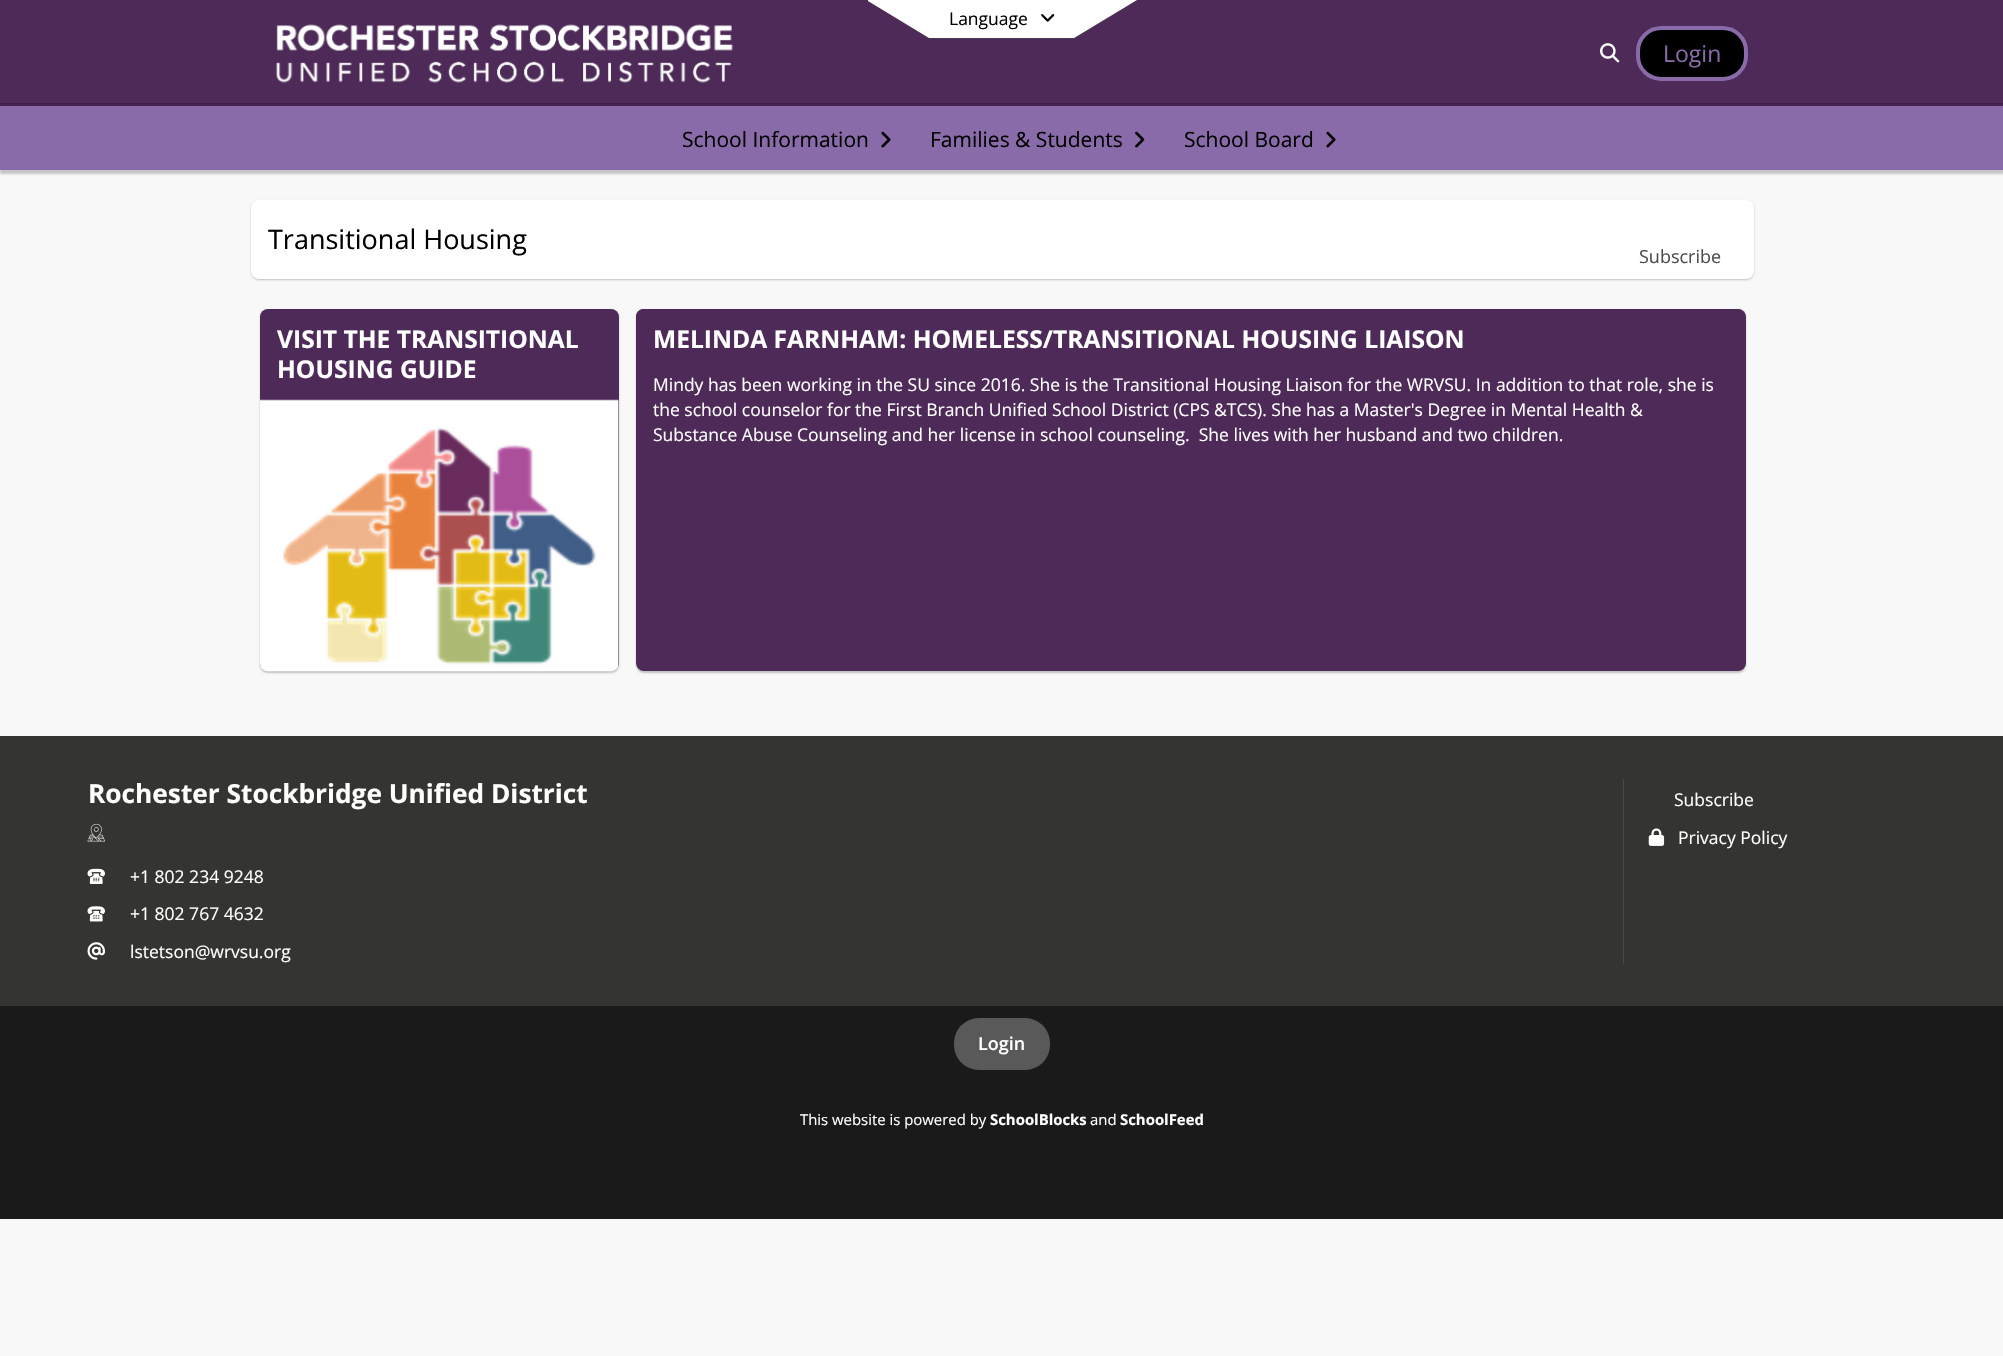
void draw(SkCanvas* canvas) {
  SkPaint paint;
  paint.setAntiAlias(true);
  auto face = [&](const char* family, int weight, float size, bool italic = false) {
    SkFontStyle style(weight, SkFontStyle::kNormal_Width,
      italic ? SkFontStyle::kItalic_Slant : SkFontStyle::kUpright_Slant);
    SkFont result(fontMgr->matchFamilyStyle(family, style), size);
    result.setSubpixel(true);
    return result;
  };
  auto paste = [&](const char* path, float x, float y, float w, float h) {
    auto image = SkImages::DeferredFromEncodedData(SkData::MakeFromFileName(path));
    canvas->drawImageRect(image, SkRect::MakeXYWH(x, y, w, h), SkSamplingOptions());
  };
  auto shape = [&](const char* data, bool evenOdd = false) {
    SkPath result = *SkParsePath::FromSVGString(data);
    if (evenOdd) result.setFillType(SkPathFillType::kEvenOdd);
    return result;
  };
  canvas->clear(0xfff8f8f8);
  paint.setColor(0x33000000);
  paint.setMaskFilter(SkMaskFilter::MakeBlur(kNormal_SkBlurStyle, 1));
  canvas->drawRect(SkRect::MakeXYWH(0, 106, 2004, 68), paint);
  paint.setMaskFilter(nullptr);
  paint.setColor(0xff492752);
  canvas->drawRect(SkRect::MakeXYWH(0, 103, 2003, 3), paint);
  paint.setColor(0x1a000000);
  canvas->drawPath(shape("M0 102V104H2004V1V102Z"), paint);
  paint.setColor(0xff896ba9);
  canvas->drawRect(SkRect::MakeXYWH(0, 106, 2003, 64), paint);
  paint.setColor(0x1a000000);
  paint.setMaskFilter(SkMaskFilter::MakeBlur(kNormal_SkBlurStyle, 1));
  canvas->drawRect(SkRect::MakeXYWH(0, 3, 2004, 102), paint);
  paint.setMaskFilter(nullptr);
  paint.setColor(0xff4d2a57);
  canvas->drawRect(SkRect::MakeXYWH(0, 0, 2003, 103), paint);
  paint.setColor(0xff4d3853);
  canvas->drawPath(shape("M866 0L929 39H1074L1138 0Z"), paint);
  paint.setColor(0xffffffff);
  canvas->drawPath(shape("M868 0V1L929 38H1074L1137 0Z"), paint);
  paste("img/1.png", 1041, 14, 14, 8);
  paste("img/2.png", 276, 24, 457, 59);
  paste("img/3.png", 1600, 43, 20, 20);
  canvas->save();
  canvas->clipPath(shape("M1661 26H1723C1737 26 1748 37 1748 51V56C1748 70 1737 81 1723 81H1661C1647 81 1636 70 1636 56V51C1636 37 1647 26 1661 26Z"), true);
  paint.setColor(0xff000000);
  canvas->drawRect(SkRect::MakeXYWH(1640, 26, 104, 55), paint);
  canvas->restore();
  paint.setStroke(true);
  paint.setStrokeWidth(4);
  paint.setColor(0xff896ba9);
  canvas->drawRoundRect(SkRect::MakeXYWH(1638, 28, 108, 51), 23, 23, paint);
  paste("img/4.png", 881, 131, 10, 17);
  paste("img/5.png", 1135, 131, 10, 17);
  paste("img/4.png", 1326, 131, 10, 17);
  paint.setStroke(false);
  paint.setColor(0x38000000);
  paint.setMaskFilter(SkMaskFilter::MakeBlur(kNormal_SkBlurStyle, 1));
  canvas->drawRoundRect(SkRect::MakeXYWH(251, 201, 1503, 79), 8, 8, paint);
  paint.setMaskFilter(nullptr);
  paint.setColor(0xffffffff);
  canvas->drawRoundRect(SkRect::MakeXYWH(251, 200, 1503, 79), 8, 8, paint);
  paint.setColor(0x38000000);
  paint.setMaskFilter(SkMaskFilter::MakeBlur(kNormal_SkBlurStyle, 1));
  canvas->drawRoundRect(SkRect::MakeXYWH(260, 310, 359, 363), 8, 8, paint);
  paint.setMaskFilter(nullptr);
  paint.setColor(0xff4d2a57);
  canvas->drawRoundRect(SkRect::MakeXYWH(260, 309, 359, 362), 8, 8, paint);
  paste("img/6.png", 260, 399, 359, 273);
  paint.setColor(0x38000000);
  paint.setMaskFilter(SkMaskFilter::MakeBlur(kNormal_SkBlurStyle, 1));
  canvas->drawRoundRect(SkRect::MakeXYWH(636, 310, 1110, 363), 8, 8, paint);
  paint.setMaskFilter(nullptr);
  paint.setColor(0xff4d2a57);
  canvas->drawRoundRect(SkRect::MakeXYWH(636, 309, 1110, 362), 8, 8, paint);
  canvas->drawPath(shape("M644 309H1737C1741.5 309 1745 312.5 1745 317V354H636V317C636 312.5 639.5 309 644 309Z"), paint);
  paint.setColor(0xff343430);
  canvas->drawRect(SkRect::MakeXYWH(0, 736, 2003, 270), paint);
  paste("img/7.png", 87, 823, 18, 19);
  paste("img/8.png", 87, 868, 18, 16);
  paste("img/9.png", 87, 906, 18, 16);
  paste("img/10.png", 87, 942, 18, 18);
  paint.setColor(0xff494a4d);
  canvas->drawRect(SkRect::MakeXYWH(1623, 779, 1, 185), paint);
  paste("img/11.png", 1648, 828, 17, 18);
  paint.setColor(0xff1a1a1a);
  canvas->drawRect(SkRect::MakeXYWH(0, 1006, 2003, 213), paint);
  paint.setColor(0xff595959);
  canvas->drawRoundRect(SkRect::MakeXYWH(954, 1018, 96, 52), 25, 25, paint);
  auto f0 = face("Open Sans", 400, 17.5f);
  paint.setColor(0xff000000);
  canvas->drawString("Language", 949, 25, f0, paint);
  auto f1 = face("Open Sans", 400, 23);
  paint.setColor(0xff896ba9);
  canvas->drawString("Login", 1663, 62, f1, paint);
  auto f2 = face("Open Sans", 400, 21);
  paint.setColor(0xff000000);
  {
    const struct { const char* s; float x, y; } items[] = {
      {"School Information", 682, 147},
      {"Families & Students", 930, 147},
      {"School Board", 1184, 147},
    };
    for (auto [s, x, y] : items) {
      canvas->drawString(s, x, y, f2, paint);
    }
  }
  auto f3 = face("Open Sans", 400, 27);
  canvas->drawString("Transitional Housing", 268, 249, f3, paint);
  auto f4 = face("Open Sans", 400, 18);
  paint.setColor(0xff4d4d4d);
  canvas->drawString("Subscribe", 1639, 263, f4, paint);
  auto f5 = face("Open Sans", 700, 24.6f);
  paint.setColor(0xffffffff);
  {
    const struct { const char* s; float x, y; } items[] = {
      {"VISIT THE TRANSITIONAL", 277, 348},
      {"HOUSING GUIDE", 277, 378},
      {"MELINDA FARNHAM: HOMELESS/TRANSITIONAL HOUSING LIAISON", 653, 348},
    };
    for (auto [s, x, y] : items) {
      canvas->drawString(s, x, y, f5, paint);
    }
  }
  {
    const struct { const char* s; float x, y; } items[] = {
      {"Mindy has been working in the SU since 2016. She is the Transitional Housing Liaison for the WRVSU. In addition to that role, she is", 653, 391},
      {"the school counselor for the First Branch Unified School District (CPS &TCS). She has a Master's Degree in Mental Health &", 653, 416},
      {"Substance Abuse Counseling and her license in school counseling.  She lives with her husband and two children.", 653, 441},
    };
    for (auto [s, x, y] : items) {
      canvas->drawString(s, x, y, f0, paint);
    }
  }
  auto f6 = face("Open Sans", 700, 26.25f);
  canvas->drawString("Rochester Stockbridge Unified District", 88, 803, f6, paint);
  {
    const struct { const char* s; float x, y; } items[] = {
      {"+1 802 234 9248", 130, 883},
      {"+1 802 767 4632", 130, 920},
      {"lstetson@wrvsu.org", 130, 958},
      {"Subscribe", 1674, 806},
      {"Privacy Policy", 1678, 844},
    };
    for (auto [s, x, y] : items) {
      canvas->drawString(s, x, y, f0, paint);
    }
  }
  auto f7 = face("Open Sans", 600, 18);
  canvas->drawString("Login", 978, 1050, f7, paint);
  auto f8 = face("Open Sans", 400, 14.9f);
  canvas->drawString("This website is powered by", 800, 1125, f8, paint);
  auto f9 = face("Open Sans", 700, 14.9f);
  canvas->drawString("SchoolBlocks", 990, 1125, f9, paint);
  canvas->drawString("and", 1090, 1125, f8, paint);
  canvas->drawString("SchoolFeed", 1120, 1125, f9, paint);
}
